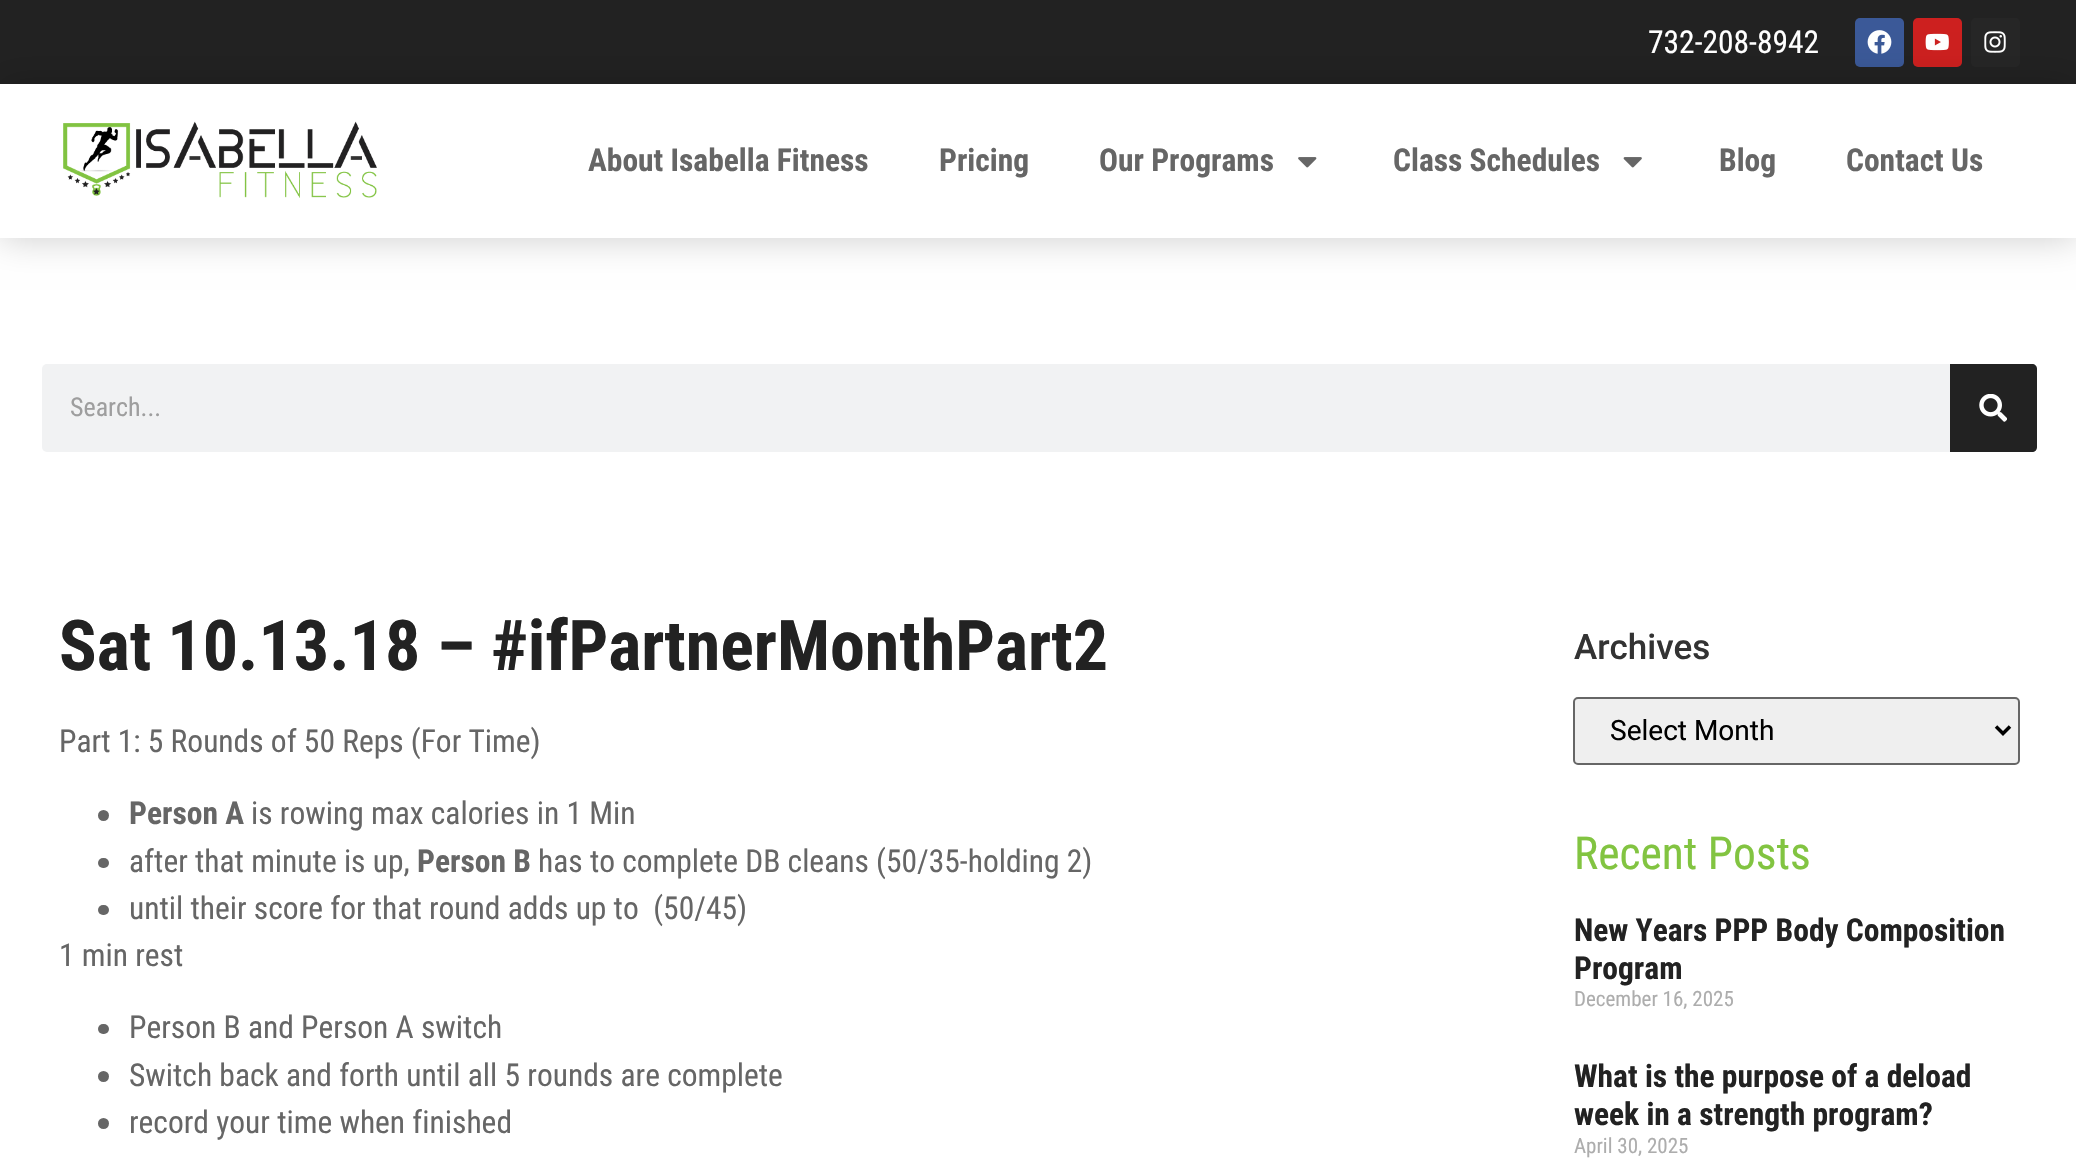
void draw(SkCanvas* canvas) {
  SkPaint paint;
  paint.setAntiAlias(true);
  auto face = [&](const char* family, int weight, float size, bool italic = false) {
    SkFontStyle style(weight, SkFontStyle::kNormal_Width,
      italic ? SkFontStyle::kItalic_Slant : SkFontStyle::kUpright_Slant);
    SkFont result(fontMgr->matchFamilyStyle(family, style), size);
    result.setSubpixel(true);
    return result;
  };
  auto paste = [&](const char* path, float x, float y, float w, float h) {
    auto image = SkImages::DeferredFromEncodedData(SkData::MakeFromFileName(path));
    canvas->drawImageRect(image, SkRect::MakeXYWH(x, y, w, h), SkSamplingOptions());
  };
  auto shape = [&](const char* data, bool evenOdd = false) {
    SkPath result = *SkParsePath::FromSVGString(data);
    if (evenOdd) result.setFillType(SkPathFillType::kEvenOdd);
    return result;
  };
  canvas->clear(0xffffffff);
  paint.setColor(0xff222222);
  canvas->drawRect(SkRect::MakeXYWH(0, 0, 2076, 84), paint);
  paint.setColor(0xff3b5998);
  canvas->drawRoundRect(SkRect::MakeXYWH(1855, 18, 49, 49), 5, 5, paint);
  paste("img/1.png", 1867, 30, 25, 24);
  paint.setColor(0xffcd201f);
  canvas->drawRoundRect(SkRect::MakeXYWH(1913, 18, 49, 49), 5, 5, paint);
  paste("img/2.png", 1925, 33, 24, 18);
  paint.setColor(0xff262626);
  canvas->drawRoundRect(SkRect::MakeXYWH(1971, 18, 49, 49), 5, 5, paint);
  paste("img/3.png", 1984, 31, 22, 22);
  canvas->save();
  canvas->clipPath(shape("M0 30H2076V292H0ZM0 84H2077V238H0Z", true), true);
  paint.setColor(0x33000000);
  paint.setMaskFilter(SkMaskFilter::MakeBlur(kNormal_SkBlurStyle, 17.5f));
  canvas->drawRect(SkRect::MakeXYWH(0, 84, 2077, 154), paint);
  paint.setMaskFilter(nullptr);
  canvas->restore();
  paste("img/4.png", 63, 121, 314, 77);
  paste("img/5.png", 1298, 157, 19, 11);
  paste("img/6.png", 1623, 157, 19, 11);
  paint.setColor(0xfff1f2f3);
  canvas->drawRoundRect(SkRect::MakeXYWH(42, 364, 1995, 88), 5, 5, paint);
  paint.setColor(0xff222222);
  canvas->drawPath(shape("M1950 364H2032C2035 364 2037 366 2037 369V447C2037 450 2035 452 2032 452H1950Z"), paint);
  paste("img/7.png", 1979, 394, 28, 28);
  paint.setColor(0xff666666);
  canvas->drawCircle(103.5f, 815.5f, 5.5f, paint);
  canvas->drawRoundRect(SkRect::MakeXYWH(98, 858, 11, 10), 5, 5, paint);
  canvas->drawRoundRect(SkRect::MakeXYWH(98, 905, 11, 10), 5, 5, paint);
  canvas->drawRoundRect(SkRect::MakeXYWH(98, 1024, 11, 10), 5, 5, paint);
  canvas->drawCircle(103.5f, 1076.5f, 5.5f, paint);
  canvas->drawCircle(103.5f, 1123.5f, 5.5f, paint);
  paint.setColor(0xffefefef);
  canvas->drawRoundRect(SkRect::MakeXYWH(1574, 698, 445, 66), 4, 4, paint);
  paint.setStroke(true);
  paint.setStrokeWidth(2);
  paint.setColor(0xff666666);
  canvas->drawRoundRect(SkRect::MakeXYWH(1574, 698, 445, 66), 4, 4, paint);
  paint.setStrokeWidth(3.5f);
  paint.setColor(0xff000000);
  canvas->drawPath(shape("M1996 726.5L2003 733.5L2010 726.5"), paint);
  auto f0 = face("Roboto Condensed", 400, 31.5f);
  paint.setStroke(false);
  paint.setColor(0xffffffff);
  canvas->drawString("732-208-8942", 1648, 53, f0, paint);
  auto f1 = face("Roboto Condensed", 700, 31.5f);
  paint.setColor(0xff666666);
  {
    const struct { const char* s; float x, y; } items[] = {
      {"About Isabella Fitness", 588, 171},
      {"Pricing", 939, 171},
      {"Our Programs", 1099, 171},
      {"Class Schedules", 1393, 171},
      {"Blog", 1719, 171},
      {"Contact Us", 1846, 171},
    };
    for (auto [s, x, y] : items) {
      canvas->drawString(s, x, y, f1, paint);
    }
  }
  auto f2 = face("Roboto Condensed", 400, 26);
  paint.setColor(0xff9e9e9e);
  canvas->drawString("Search...", 70, 416, f2, paint);
  auto f3 = face("Roboto Condensed", 700, 70);
  paint.setColor(0xff222222);
  canvas->drawString("Sat 10.13.18 – #ifPartnerMonthPart2", 59, 670, f3, paint);
  paint.setColor(0xff666666);
  canvas->drawString("Part 1: 5 Rounds of 50 Reps (For Time)", 59, 752, f0, paint);
  canvas->drawString("Person A", 129, 824, f1, paint);
  canvas->drawString("is rowing max calories in 1 Min", 251, 824, f0, paint);
  canvas->drawString("after that minute is up,", 129, 872, f0, paint);
  canvas->drawString("Person B", 417, 872, f1, paint);
  {
    const struct { const char* s; float x, y; } items[] = {
      {"has to complete DB cleans (50/35-holding 2)", 538, 872},
      {"until their score for that round adds up to  (50/45)", 129, 919},
      {"1 min rest", 59, 966},
      {"Person B and Person A switch", 129, 1038},
      {"Switch back and forth until all 5 rounds are complete", 129, 1086},
      {"record your time when finished", 129, 1133},
    };
    for (auto [s, x, y] : items) {
      canvas->drawString(s, x, y, f0, paint);
    }
  }
  auto f4 = face("Roboto", 500, 35);
  paint.setColor(0xff333333);
  canvas->drawString("Archives", 1574, 659, f4, paint);
  auto f5 = face("Roboto", 400, 28);
  paint.setColor(0xff000000);
  canvas->drawString("Select Month", 1610, 740, f5, paint);
  auto f6 = face("Roboto Condensed", 400, 45.5f);
  paint.setColor(0xff82c441);
  canvas->drawString("Recent Posts", 1574, 869, f6, paint);
  paint.setColor(0xff222222);
  canvas->drawString("New Years PPP Body Composition", 1574, 941, f1, paint);
  canvas->drawString("Program", 1574, 979, f1, paint);
  auto f7 = face("Roboto Condensed", 400, 21);
  paint.setColor(0xffadadad);
  canvas->drawString("December 16, 2025", 1574, 1006, f7, paint);
  paint.setColor(0xff222222);
  canvas->drawString("What is the purpose of a deload", 1574, 1087, f1, paint);
  canvas->drawString("week in a strength program?", 1574, 1125, f1, paint);
  paint.setColor(0xffadadad);
  canvas->drawString("April 30, 2025", 1574, 1153, f7, paint);
}
